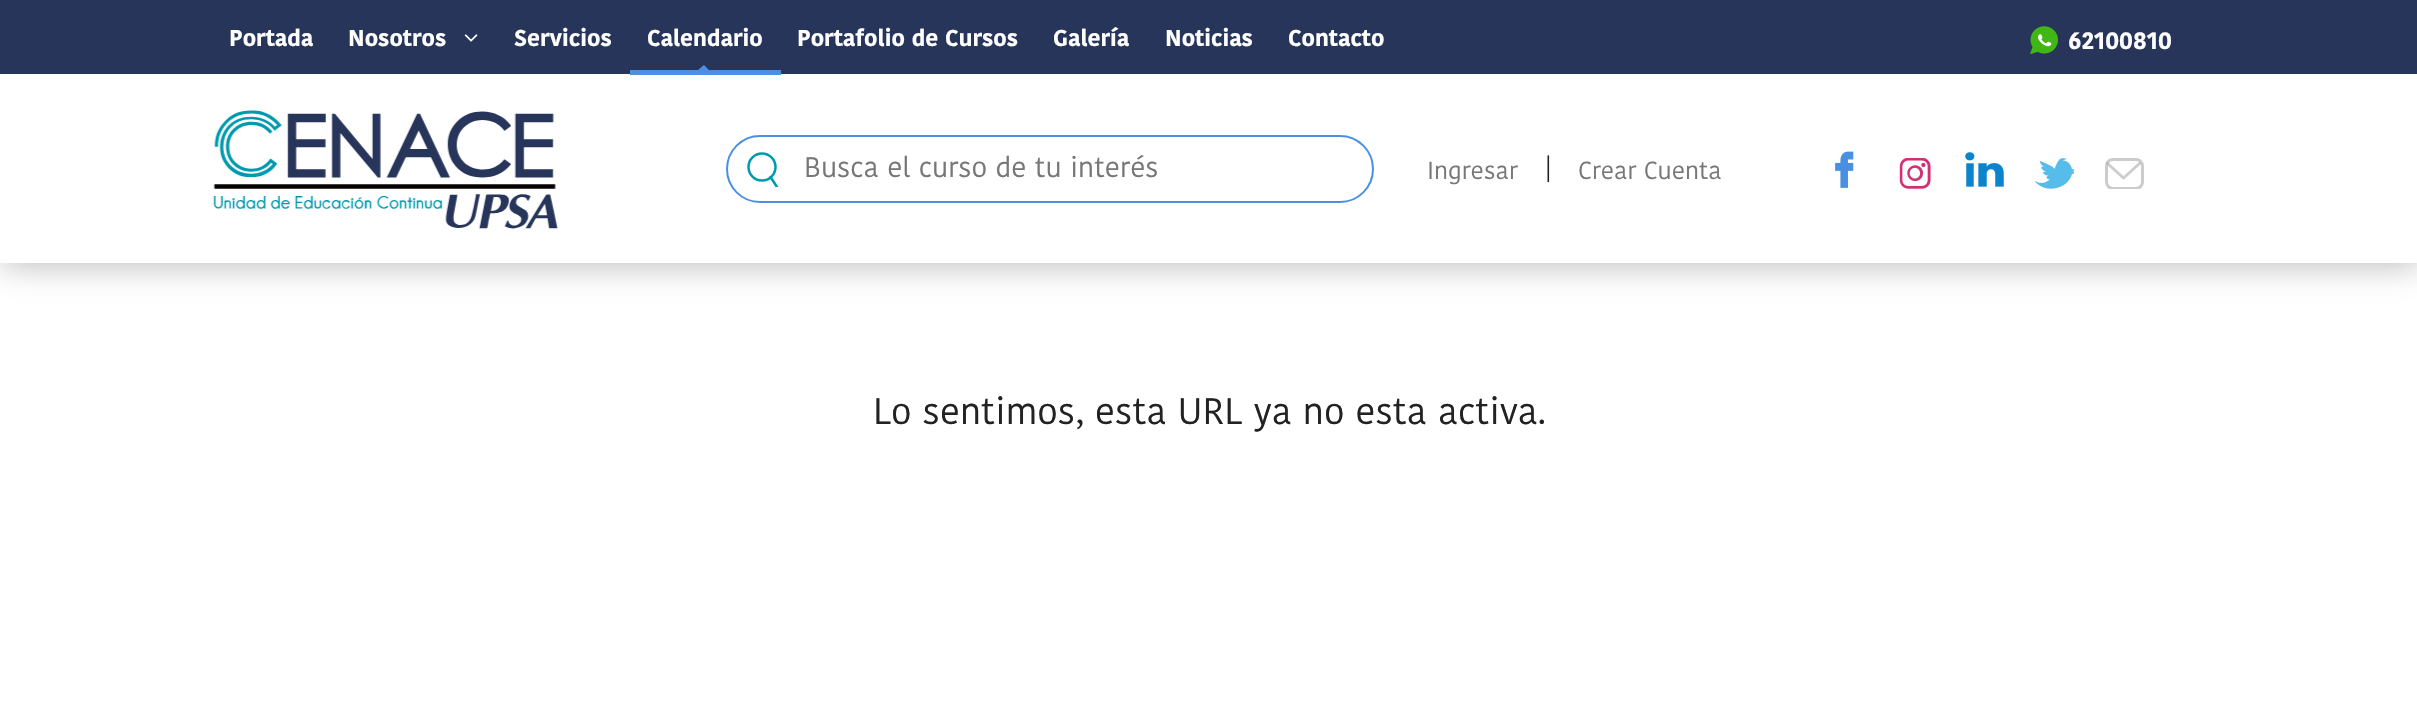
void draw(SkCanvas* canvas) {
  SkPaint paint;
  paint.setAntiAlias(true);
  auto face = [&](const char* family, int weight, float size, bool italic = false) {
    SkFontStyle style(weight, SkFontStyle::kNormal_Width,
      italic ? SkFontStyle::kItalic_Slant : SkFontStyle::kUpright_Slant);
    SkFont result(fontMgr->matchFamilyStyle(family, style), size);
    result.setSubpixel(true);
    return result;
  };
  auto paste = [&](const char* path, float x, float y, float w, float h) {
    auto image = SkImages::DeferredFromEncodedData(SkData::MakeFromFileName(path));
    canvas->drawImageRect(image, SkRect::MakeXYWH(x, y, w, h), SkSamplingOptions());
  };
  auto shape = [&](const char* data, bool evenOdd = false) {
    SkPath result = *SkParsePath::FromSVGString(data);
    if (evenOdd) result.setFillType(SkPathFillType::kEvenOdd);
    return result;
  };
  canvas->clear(0xffffffff);
  canvas->save();
  canvas->clipPath(shape("M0 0H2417V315H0ZM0 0H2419V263H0Z", true), true);
  paint.setColor(0x806d6c6c);
  paint.setMaskFilter(SkMaskFilter::MakeBlur(kNormal_SkBlurStyle, 16.5f));
  canvas->drawRect(SkRect::MakeXYWH(2, 2, 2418, 262), paint);
  paint.setMaskFilter(nullptr);
  canvas->restore();
  paint.setColor(0xfaffffff);
  canvas->drawRect(SkRect::MakeXYWH(0, 262, 2417, 1), paint);
  paint.setColor(0xff27355b);
  canvas->drawRect(SkRect::MakeXYWH(0, 0, 2417, 74), paint);
  paste("img/1.png", 464, 34, 14, 8);
  canvas->save();
  canvas->clipRect(SkRect::MakeXYWH(630, 65, 151, 10));
  paint.setColor(0xfc4a90e2);
  canvas->drawPath(shape("M698 70H516V75H894V70H709L704 65Z"), paint);
  canvas->restore();
  paste("img/2.png", 2030, 26, 28, 28);
  paste("img/3.png", 213, 110, 345, 119);
  paint.setStroke(true);
  paint.setStrokeWidth(2);
  paint.setColor(0xff4a90e2);
  canvas->drawRoundRect(SkRect::MakeXYWH(727, 136, 646, 66), 33, 33, paint);
  paint.setStrokeWidth(2.5f);
  paint.setColor(0xff009aaf);
  canvas->drawCircle(762, 167, 13.5f, paint);
  canvas->save();
  canvas->clipRect(SkRect::MakeXYWH(747, 152, 32, 35));
  paint.setStrokeCap(SkPaint::kRound_Cap);
  paint.setStrokeJoin(SkPaint::kRound_Join);
  canvas->drawPath(shape("M770.5 177L777 187"), paint);
  canvas->restore();
  paste("img/4.png", 1835, 151, 19, 37);
  paste("img/5.png", 1899, 158, 32, 31);
  paste("img/6.png", 1965, 152, 39, 35);
  paste("img/7.png", 2035, 158, 39, 31);
  canvas->save();
  canvas->clipRect(SkRect::MakeXYWH(2105, 158, 39, 31));
  paint.setStrokeWidth(3);
  paint.setStrokeCap(SkPaint::kButt_Cap);
  paint.setStrokeJoin(SkPaint::kMiter_Join);
  paint.setColor(0xffcccccc);
  canvas->drawRoundRect(SkRect::MakeXYWH(2106.5f, 159.5f, 36, 29), 6.5f, 6.5f, paint);
  canvas->restore();
  paint.setStrokeCap(SkPaint::kRound_Cap);
  paint.setStrokeJoin(SkPaint::kRound_Join);
  paint.setColor(0x96aaaaaa);
  canvas->drawPath(shape("M2107.5 163.5L2123.5 178L2139.5 163.5"), paint);
  auto f0 = face("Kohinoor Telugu", 700, 22.75f);
  paint.setStroke(false);
  paint.setColor(0xffffffff);
  {
    const struct { const char* s; float x, y; } items[] = {
      {"Portada", 229, 46},
      {"Nosotros", 348, 46},
      {"Servicios", 514, 46},
      {"Calendario", 647, 46},
      {"Portafolio de Cursos", 797, 46},
      {"Galería", 1053, 46},
      {"Noticias", 1165, 46},
      {"Contacto", 1288, 46},
    };
    for (auto [s, x, y] : items) {
      canvas->drawString(s, x, y, f0, paint);
    }
  }
  auto f1 = face("Kohinoor Telugu", 700, 24.5f);
  canvas->drawString("62100810", 2068, 49, f1, paint);
  auto f2 = face("Kohinoor Telugu", 400, 28);
  paint.setColor(0xff777777);
  canvas->drawString("Busca el curso de tu interés", 804, 177, f2, paint);
  auto f3 = face("Kohinoor Telugu", 400, 24.5f);
  canvas->drawString("Ingresar", 1427, 179, f3, paint);
  paint.setColor(0xff222222);
  canvas->drawString("|", 1545, 176, f3, paint);
  paint.setColor(0xff777777);
  canvas->drawString("Crear Cuenta", 1578, 179, f3, paint);
  auto f4 = face("Kohinoor Telugu", 400, 36.75f);
  paint.setColor(0xff222222);
  canvas->drawString("Lo sentimos, esta URL ya no esta activa.", 873, 424, f4, paint);
}
